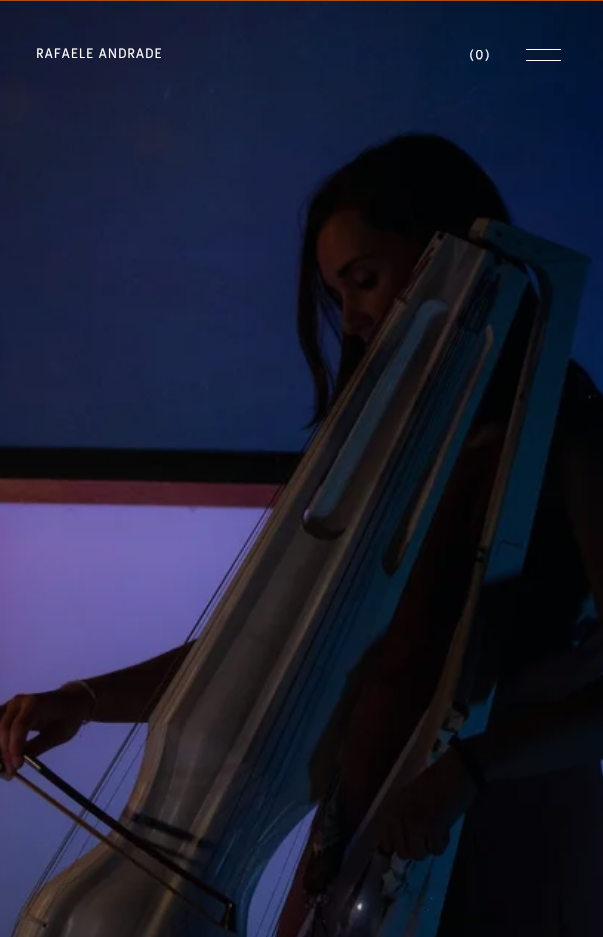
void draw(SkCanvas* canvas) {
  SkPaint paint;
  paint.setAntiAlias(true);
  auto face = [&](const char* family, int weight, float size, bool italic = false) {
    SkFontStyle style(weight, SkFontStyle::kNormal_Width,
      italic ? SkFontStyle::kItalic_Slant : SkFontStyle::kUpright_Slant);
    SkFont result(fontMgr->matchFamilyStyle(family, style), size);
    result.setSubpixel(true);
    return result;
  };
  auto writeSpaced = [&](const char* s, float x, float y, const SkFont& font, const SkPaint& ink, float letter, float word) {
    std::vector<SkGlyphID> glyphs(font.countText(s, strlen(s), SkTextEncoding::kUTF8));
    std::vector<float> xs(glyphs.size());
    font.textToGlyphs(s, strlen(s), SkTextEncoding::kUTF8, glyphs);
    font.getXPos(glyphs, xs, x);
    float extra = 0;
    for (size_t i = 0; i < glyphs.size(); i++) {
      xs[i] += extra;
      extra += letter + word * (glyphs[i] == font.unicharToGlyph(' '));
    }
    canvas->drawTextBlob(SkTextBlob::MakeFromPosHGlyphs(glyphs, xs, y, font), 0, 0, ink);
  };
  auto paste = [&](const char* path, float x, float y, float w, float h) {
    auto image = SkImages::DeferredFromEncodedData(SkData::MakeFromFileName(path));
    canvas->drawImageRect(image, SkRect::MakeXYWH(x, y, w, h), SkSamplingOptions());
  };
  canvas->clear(0xffffffff);
  paste("img/1.png", 0, 1, 603, 936);
  {
    const struct { float x, y, w, h; SkColor color; } items[] = {
      {0, 0, 603, 1, 0xffaf4c0f},
      {526, 49, 35, 1, 0xffffffff},
      {526, 60, 35, 1, 0xffffffff},
    };
    for (auto [x, y, w, h, color] : items) {
      paint.setColor(color);
      canvas->drawRect(SkRect::MakeXYWH(x, y, w, h), paint);
    }
  }
  auto f0 = face("Miriam Libre", 400, 13.75f);
  writeSpaced("RAFAELE ANDRADE", 36, 58, f0, paint, 0.8f, 0);
  auto f1 = face("Syne Mono", 400, 13.75f);
  canvas->drawString("(0)", 468, 59, f1, paint);
}
